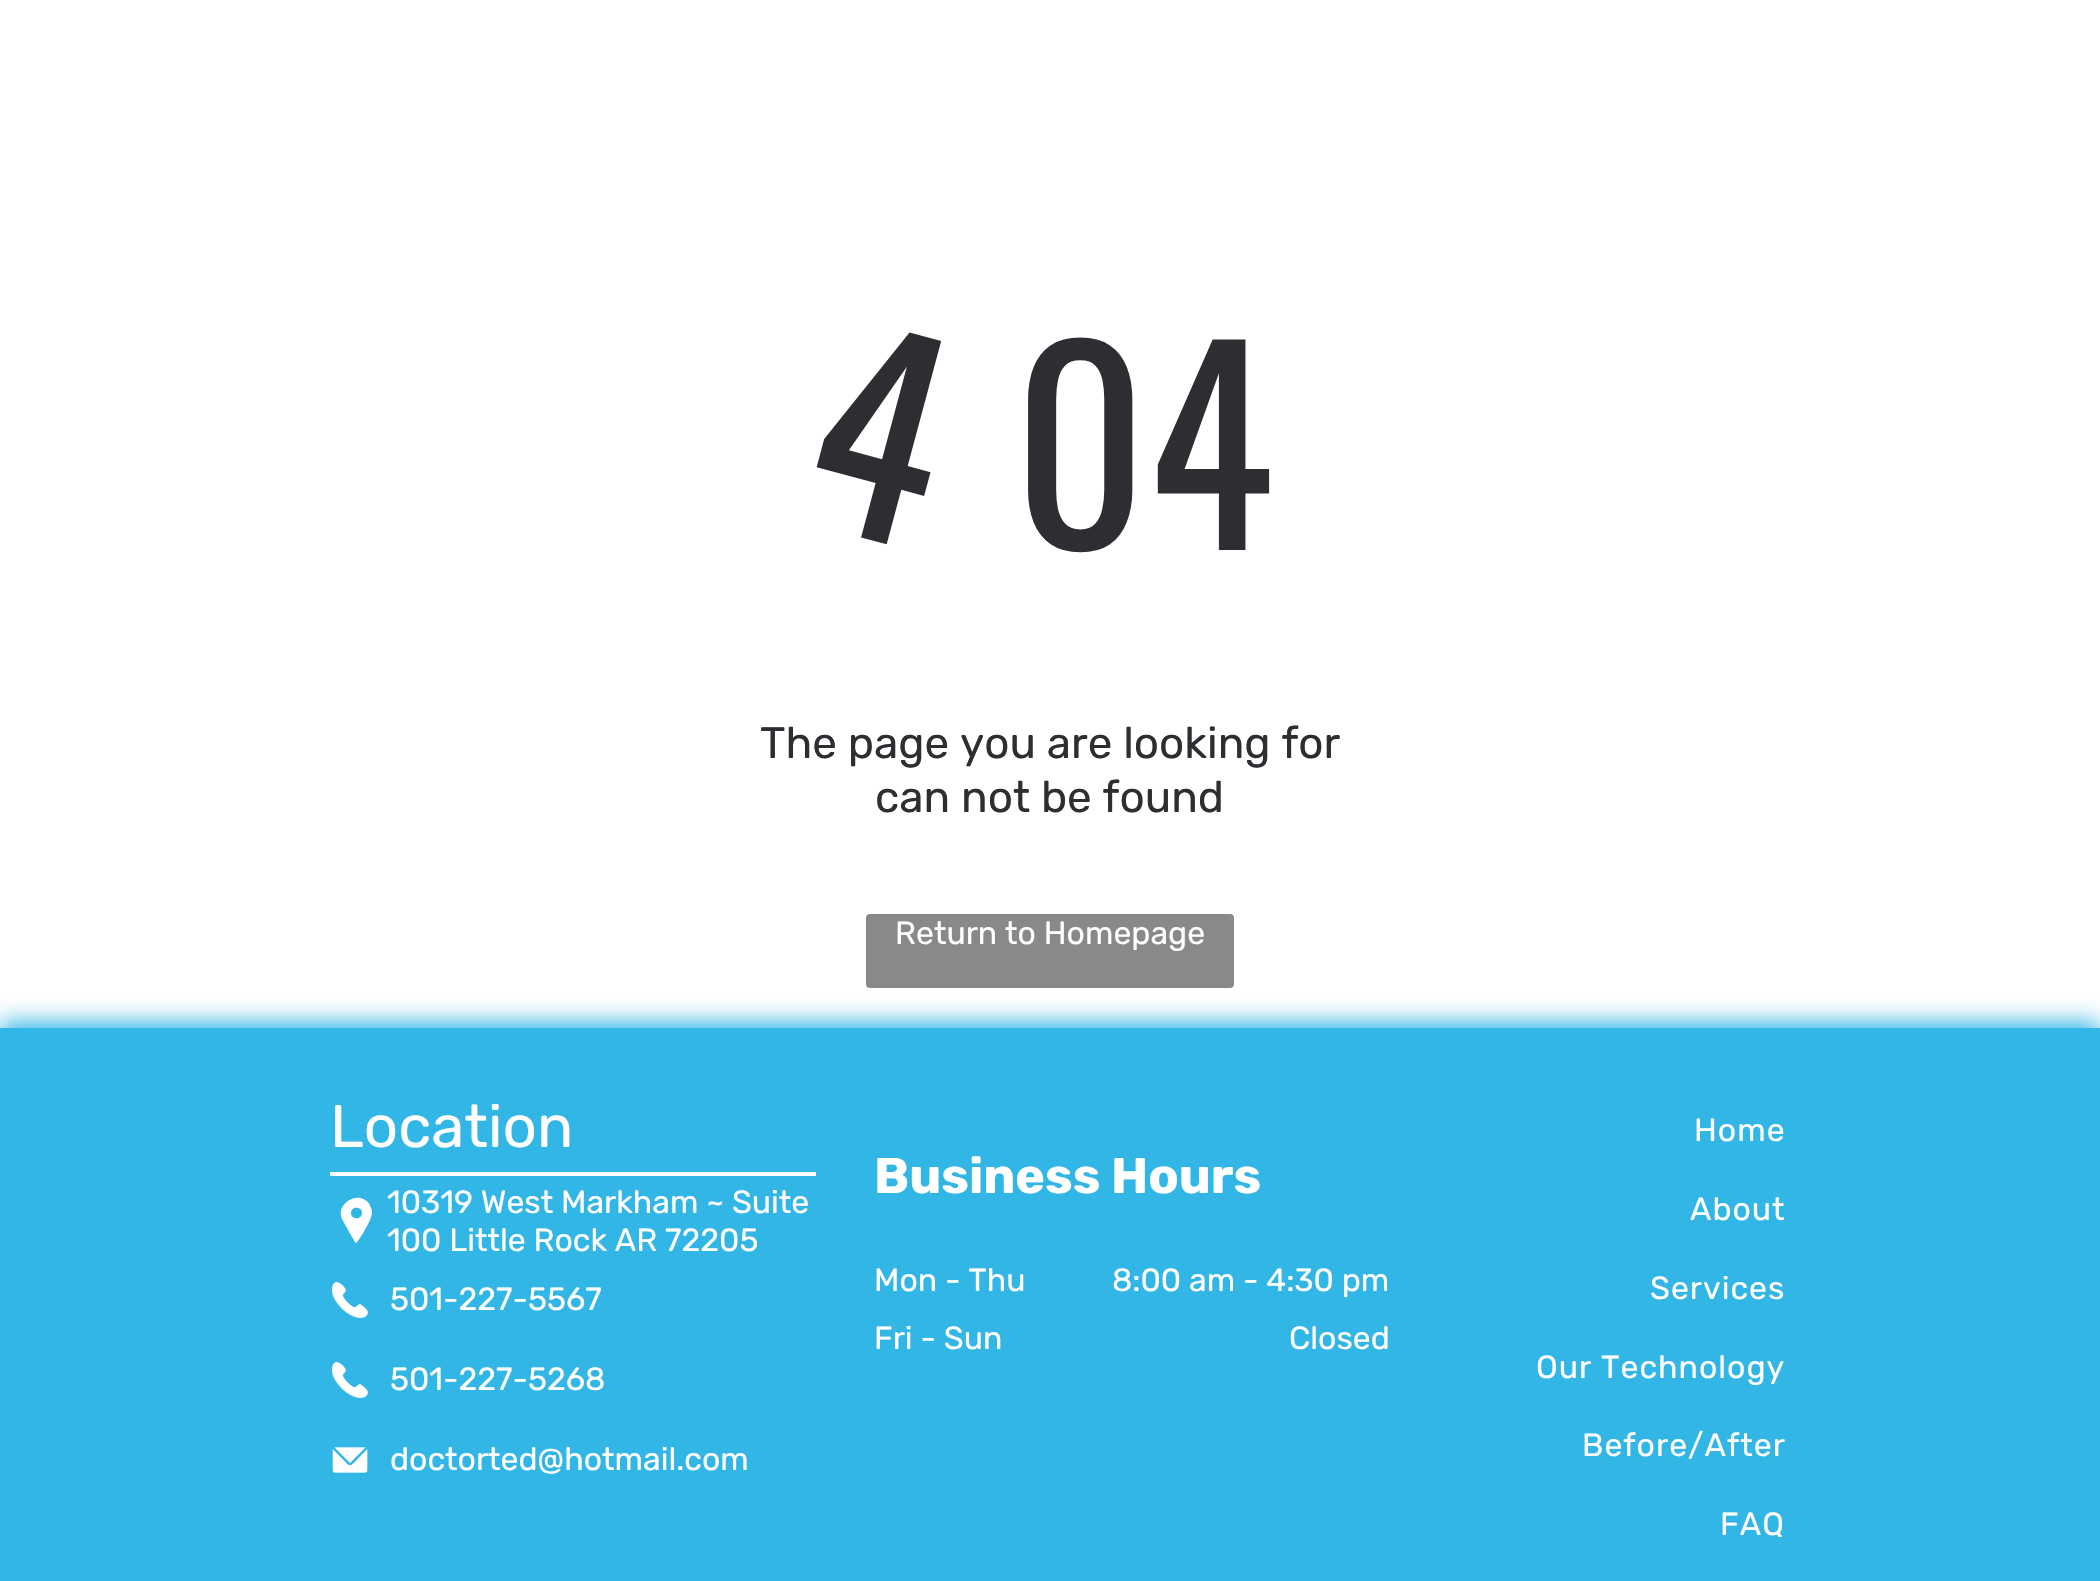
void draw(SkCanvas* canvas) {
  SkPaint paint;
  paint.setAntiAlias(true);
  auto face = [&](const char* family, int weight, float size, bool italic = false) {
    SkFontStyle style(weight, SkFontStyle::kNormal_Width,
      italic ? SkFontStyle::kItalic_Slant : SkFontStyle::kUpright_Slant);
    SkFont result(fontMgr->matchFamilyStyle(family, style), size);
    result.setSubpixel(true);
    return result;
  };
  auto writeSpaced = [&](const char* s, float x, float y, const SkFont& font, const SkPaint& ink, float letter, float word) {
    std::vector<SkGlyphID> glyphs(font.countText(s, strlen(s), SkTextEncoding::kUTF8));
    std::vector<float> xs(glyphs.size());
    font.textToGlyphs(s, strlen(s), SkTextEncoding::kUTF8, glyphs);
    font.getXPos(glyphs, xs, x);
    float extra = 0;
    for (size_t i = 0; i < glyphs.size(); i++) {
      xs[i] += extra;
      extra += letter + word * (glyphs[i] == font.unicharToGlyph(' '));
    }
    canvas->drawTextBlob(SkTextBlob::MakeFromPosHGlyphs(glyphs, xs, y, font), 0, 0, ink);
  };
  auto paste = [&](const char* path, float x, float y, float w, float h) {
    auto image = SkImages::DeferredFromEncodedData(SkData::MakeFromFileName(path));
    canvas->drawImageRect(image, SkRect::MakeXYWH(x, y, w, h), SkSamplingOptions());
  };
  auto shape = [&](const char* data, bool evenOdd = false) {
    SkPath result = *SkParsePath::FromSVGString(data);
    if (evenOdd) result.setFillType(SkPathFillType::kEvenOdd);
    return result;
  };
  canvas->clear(0xffffffff);
  paint.setColor(0xff898989);
  canvas->drawRoundRect(SkRect::MakeXYWH(866, 914, 368, 74), 4, 4, paint);
  paint.setColor(0xff32b6e6);
  canvas->drawRect(SkRect::MakeXYWH(0, 1028, 2100, 553), paint);
  canvas->save();
  canvas->clipRect(SkRect::MakeXYWH(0, 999, 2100, 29));
  paint.setMaskFilter(SkMaskFilter::MakeBlur(kNormal_SkBlurStyle, 11));
  canvas->drawRect(SkRect::MakeXYWH(0, 1022, 2100, 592), paint);
  paint.setMaskFilter(nullptr);
  canvas->restore();
  paint.setColor(0xffffffff);
  canvas->drawRect(SkRect::MakeXYWH(330, 1172, 486, 4), paint);
  canvas->drawPath(shape("M370 1205C360 1188 333 1204 343 1221C345 1224 355 1243 356 1243C358 1243 371 1220 371 1217C373 1213 372 1209 370 1206ZM362 1213C362 1220 351 1220 351 1213C351 1206 362 1206 362 1213Z"), paint);
  paste("img/1.png", 332, 1282, 36, 36);
  paste("img/1.png", 332, 1362, 36, 36);
  paste("img/2.png", 332, 1447, 36, 26);
  auto f0 = face("Oswald", 400, 260);
  paint.setColor(0xff2d2e32);
  canvas->save();
  canvas->rotate(15, 792, 519);
  canvas->drawString("4", 792, 519, f0, paint);
  canvas->restore();
  canvas->drawString("04", 1013, 550, f0, paint);
  auto f1 = face("Rubik", 400, 44);
  canvas->drawString("The page you are looking for", 760, 758, f1, paint);
  canvas->drawString("can not be found", 875, 812, f1, paint);
  auto f2 = face("Rubik", 400, 32);
  paint.setColor(0xffffffff);
  canvas->drawString("Return to Homepage", 895, 944, f2, paint);
  auto f3 = face("Rubik", 400, 60);
  canvas->drawString("Location", 330, 1147, f3, paint);
  {
    const struct { const char* s; float x, y; } items[] = {
      {"10319 West Markham ~ Suite", 387, 1213},
      {"100 Little Rock AR 72205", 387, 1251},
      {"501-227-5567", 390, 1310},
      {"501-227-5268", 390, 1390},
      {"doctorted@hotmail.com", 390, 1470},
    };
    for (auto [s, x, y] : items) {
      canvas->drawString(s, x, y, f2, paint);
    }
  }
  auto f4 = face("Rubik", 700, 50);
  canvas->drawString("Business Hours", 874, 1193, f4, paint);
  {
    const struct { const char* s; float x, y; } items[] = {
      {"Mon - Thu", 874, 1291},
      {"8:00 am - 4:30 pm", 1112, 1291},
      {"Fri - Sun", 874, 1349},
      {"Closed", 1289, 1349},
    };
    for (auto [s, x, y] : items) {
      canvas->drawString(s, x, y, f2, paint);
    }
  }
  {
    const struct { const char* s; float x, y; } items[] = {
      {"Home", 1694, 1141},
      {"About", 1690, 1220},
      {"Services", 1650, 1299},
      {"Our Technology", 1536, 1378},
      {"Before/After", 1582, 1456},
      {"FAQ", 1720, 1535},
    };
    for (auto [s, x, y] : items) {
      writeSpaced(s, x, y, f2, paint, 1, 0);
    }
  }
}
